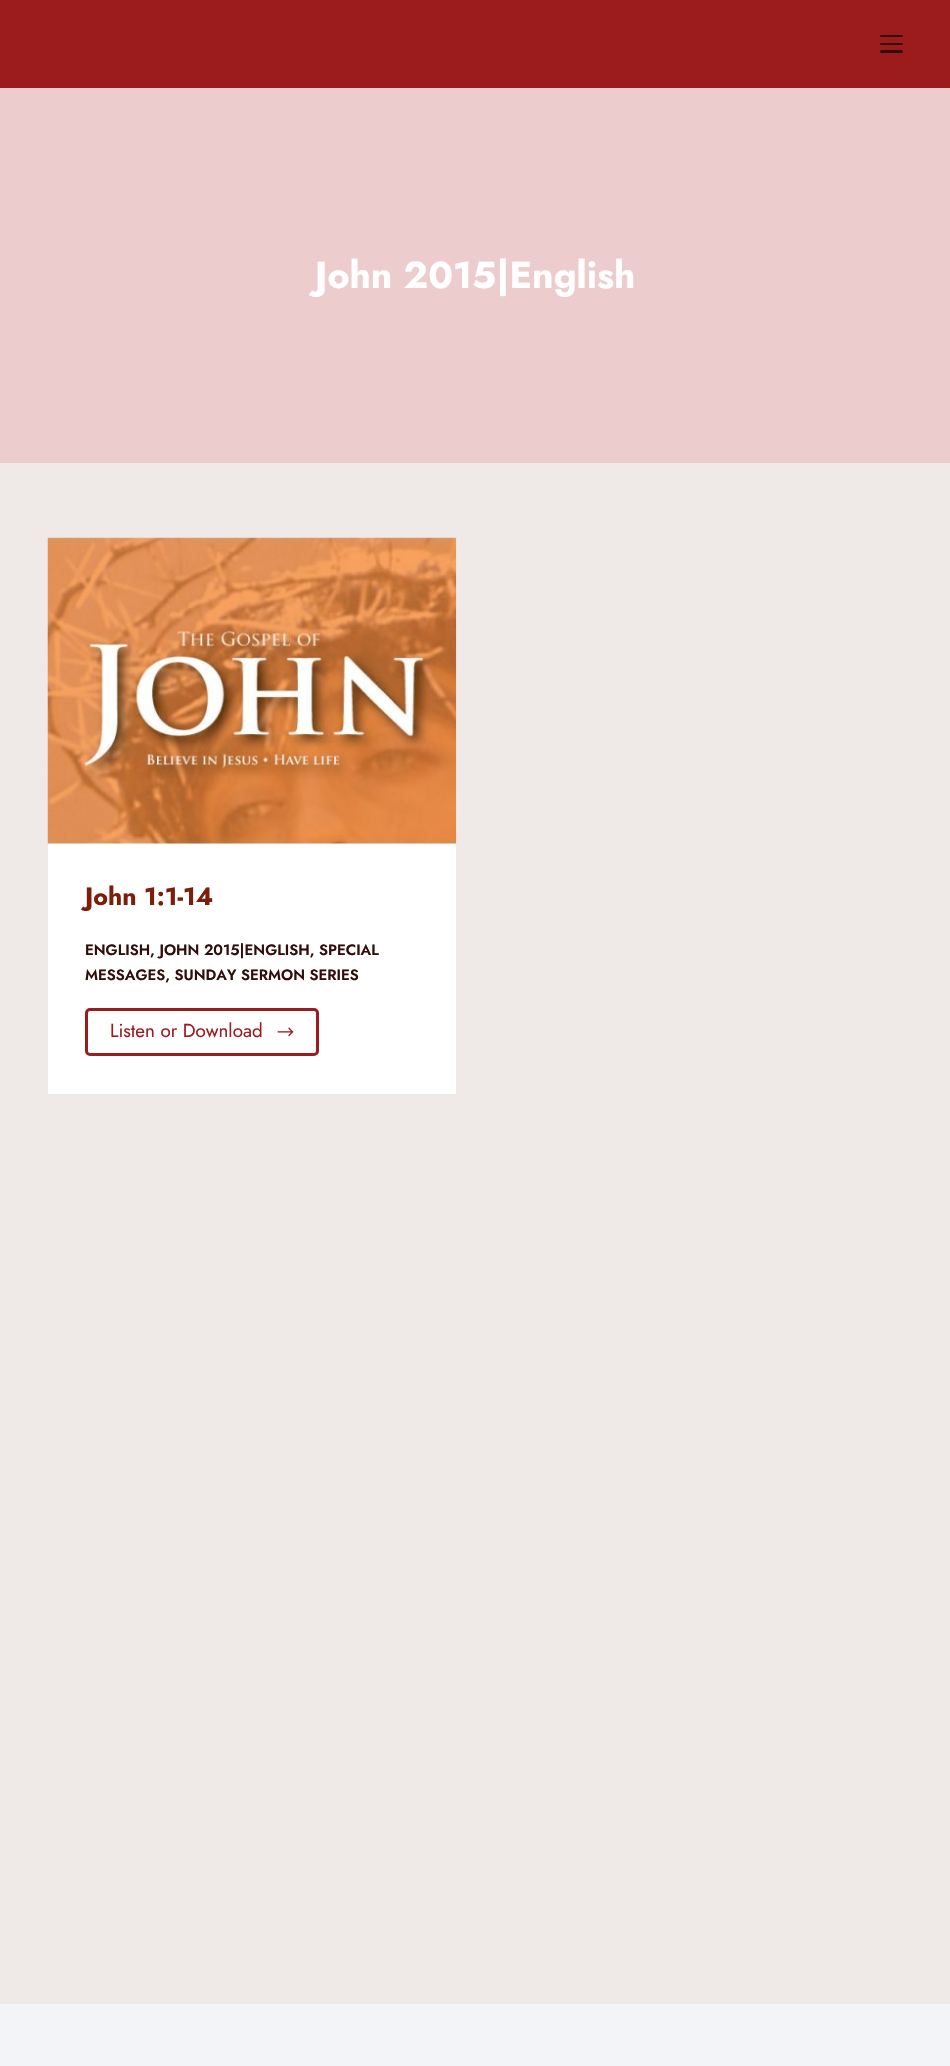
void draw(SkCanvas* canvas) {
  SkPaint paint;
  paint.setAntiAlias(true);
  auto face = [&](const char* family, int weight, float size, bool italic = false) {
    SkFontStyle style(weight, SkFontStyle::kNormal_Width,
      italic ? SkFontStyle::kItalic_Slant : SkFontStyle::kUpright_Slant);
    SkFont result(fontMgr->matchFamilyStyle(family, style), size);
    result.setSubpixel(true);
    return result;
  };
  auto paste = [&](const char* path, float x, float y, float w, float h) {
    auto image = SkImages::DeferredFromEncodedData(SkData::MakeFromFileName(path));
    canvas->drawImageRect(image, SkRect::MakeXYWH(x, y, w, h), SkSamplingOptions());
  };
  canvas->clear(0xffefe9e8);
  paint.setColor(0xff9c1c1d);
  canvas->drawRect(SkRect::MakeXYWH(0, 0, 950, 88), paint);
  paint.setColor(0xff310d0b);
  canvas->drawRoundRect(SkRect::MakeXYWH(880, 35, 23, 2), 1, 1, paint);
  canvas->drawRoundRect(SkRect::MakeXYWH(880, 43, 23, 2), 1, 1, paint);
  canvas->drawRoundRect(SkRect::MakeXYWH(880, 50, 23, 3), 1.5f, 1.5f, paint);
  paint.setColor(0xffeccccc);
  canvas->drawRect(SkRect::MakeXYWH(0, 88, 950, 375), paint);
  paint.setColor(0xffffffff);
  canvas->drawRect(SkRect::MakeXYWH(48, 843, 408, 251), paint);
  paste("img/1.png", 47, 537, 410, 307);
  paint.setStroke(true);
  paint.setStrokeWidth(3);
  paint.setColor(0xff9c1c1d);
  canvas->drawRoundRect(SkRect::MakeXYWH(86.5f, 1009.5f, 231, 45), 3.5f, 3.5f, paint);
  paste("img/2.png", 277, 1027, 17, 10);
  paint.setStroke(false);
  paint.setColor(0xfff3f4f7);
  canvas->drawRect(SkRect::MakeXYWH(0, 2004, 950, 62), paint);
  auto f0 = face("Jost", 700, 37.5f);
  paint.setColor(0xffffffff);
  canvas->drawString("John 2015|English", 315, 288, f0, paint);
  auto f1 = face("Jost", 700, 25);
  paint.setColor(0xff7c1f0a);
  canvas->drawString("John 1:1-14", 85, 905, f1, paint);
  auto f2 = face("Jost", 600, 15);
  paint.setColor(0xff310d0b);
  canvas->drawString("ENGLISH, JOHN 2015|ENGLISH, SPECIAL", 85, 955, f2, paint);
  canvas->drawString("MESSAGES, SUNDAY SERMON SERIES", 85, 980, f2, paint);
  auto f3 = face("Jost", 400, 18.75f);
  paint.setColor(0xff9c1c1d);
  canvas->drawString("Listen or Download", 110, 1037, f3, paint);
}
